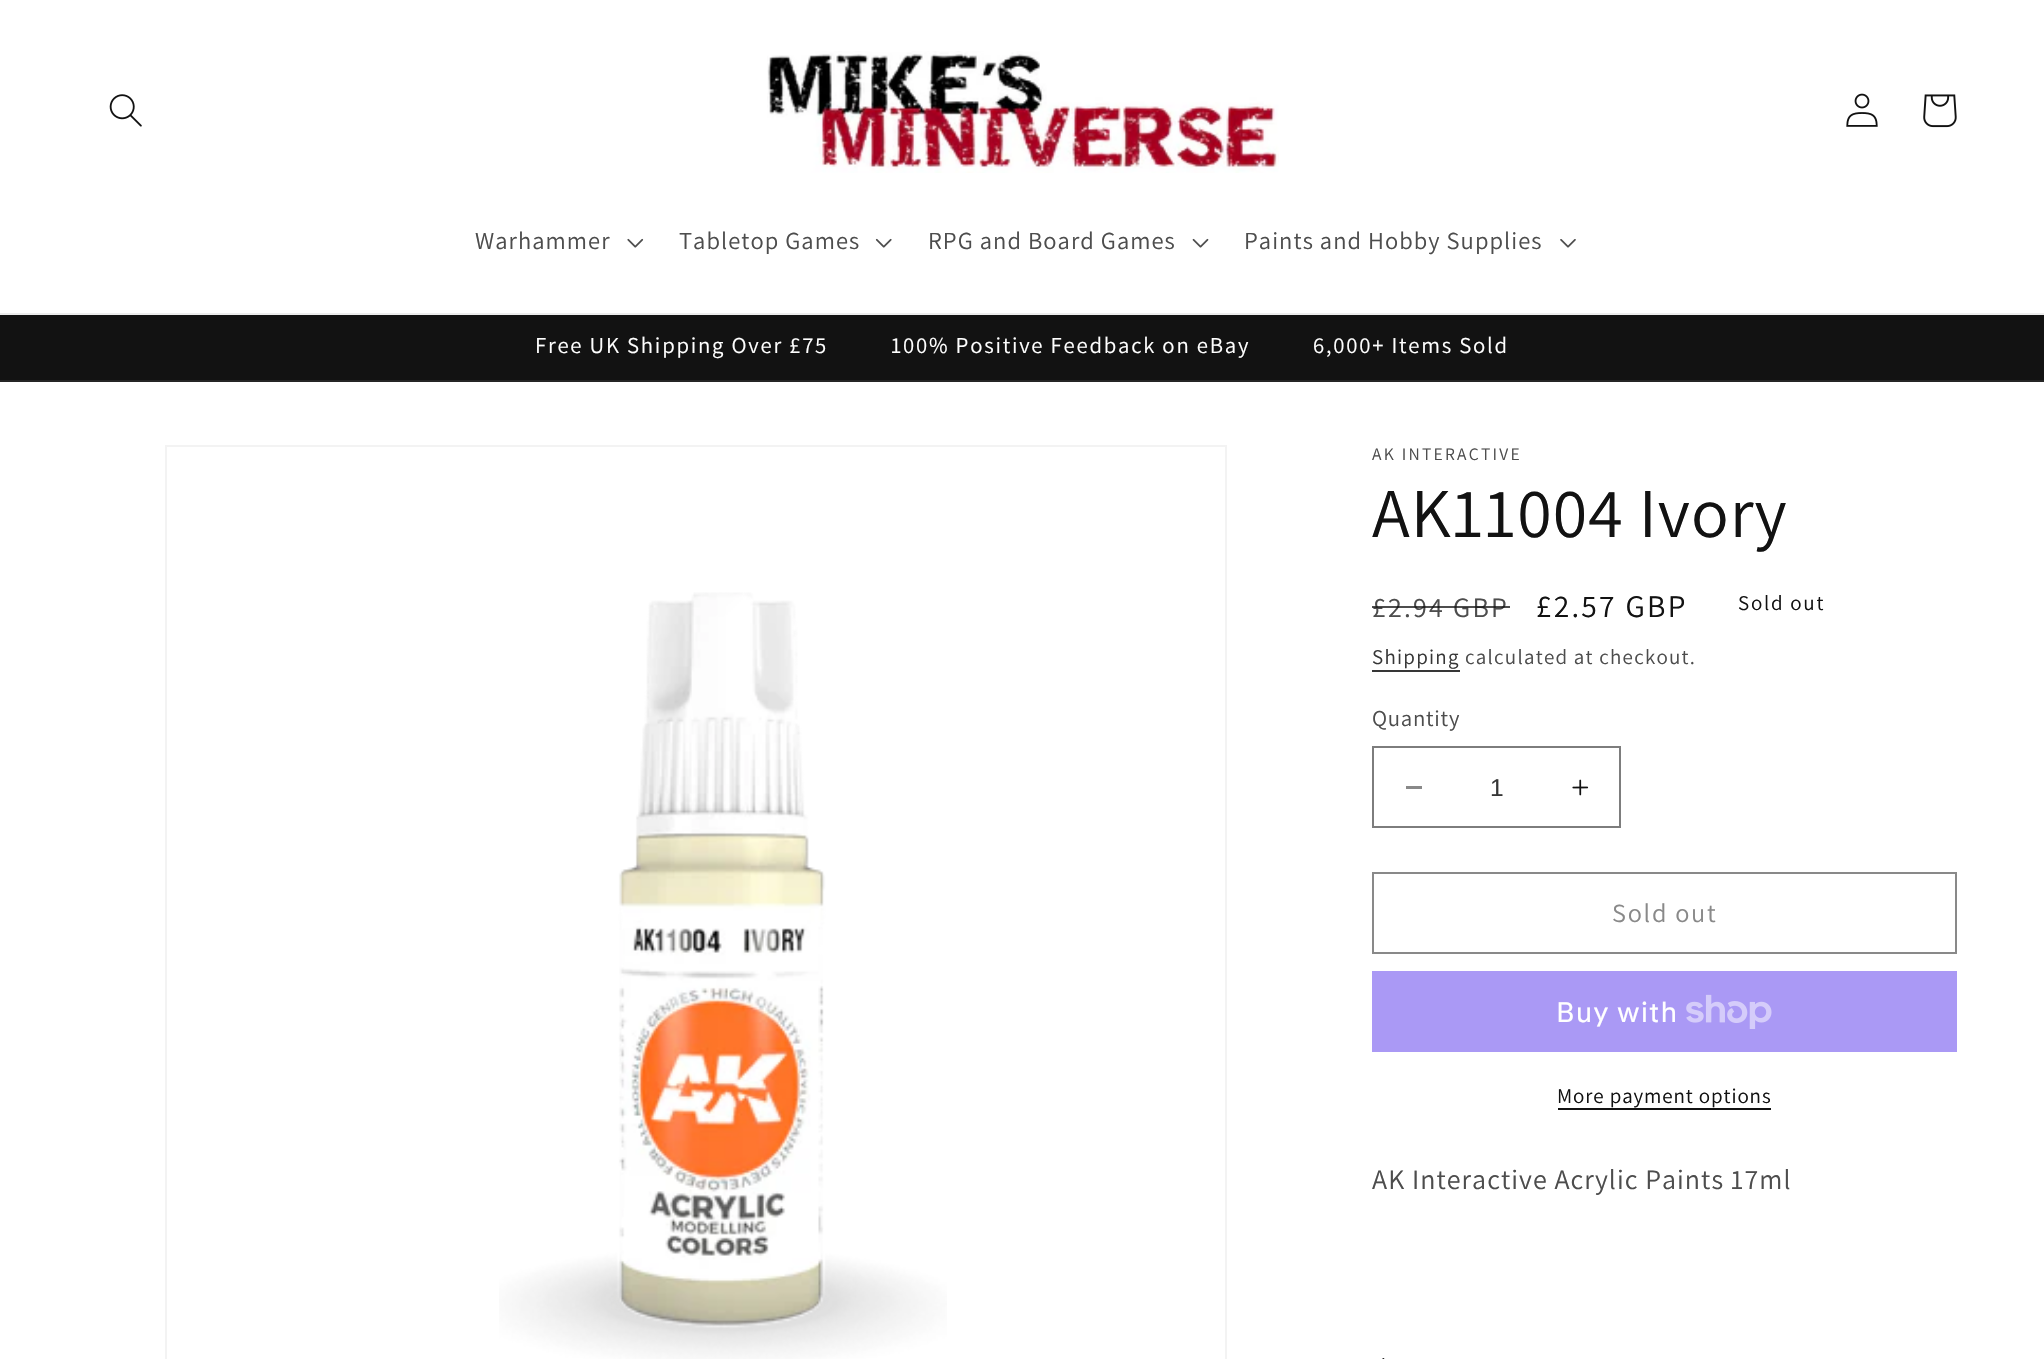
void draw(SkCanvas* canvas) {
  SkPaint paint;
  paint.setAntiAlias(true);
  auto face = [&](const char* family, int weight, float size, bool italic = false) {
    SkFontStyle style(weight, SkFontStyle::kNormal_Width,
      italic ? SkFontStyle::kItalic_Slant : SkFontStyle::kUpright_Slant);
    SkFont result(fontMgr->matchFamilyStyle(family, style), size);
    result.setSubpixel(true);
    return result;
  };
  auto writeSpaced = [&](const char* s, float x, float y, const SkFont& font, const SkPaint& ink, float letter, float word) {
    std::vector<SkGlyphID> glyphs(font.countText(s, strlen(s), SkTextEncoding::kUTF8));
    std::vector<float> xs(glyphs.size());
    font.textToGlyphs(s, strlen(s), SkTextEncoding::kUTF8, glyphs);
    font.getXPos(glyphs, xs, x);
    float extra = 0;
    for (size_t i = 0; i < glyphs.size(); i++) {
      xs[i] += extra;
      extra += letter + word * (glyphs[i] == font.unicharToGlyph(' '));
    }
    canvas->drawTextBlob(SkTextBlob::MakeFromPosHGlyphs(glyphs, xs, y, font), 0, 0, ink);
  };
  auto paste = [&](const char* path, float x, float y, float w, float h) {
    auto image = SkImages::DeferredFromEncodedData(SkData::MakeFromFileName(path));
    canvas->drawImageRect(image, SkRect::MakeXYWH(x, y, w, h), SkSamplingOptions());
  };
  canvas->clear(0xffffffff);
  paint.setColor(0xffececec);
  canvas->drawRect(SkRect::MakeXYWH(0, 313, 2044, 2), paint);
  paste("img/1.png", 109, 94, 33, 33);
  paste("img/2.png", 767, 51, 512, 122);
  paste("img/3.png", 1846, 93, 32, 34);
  paste("img/4.png", 1923, 94, 34, 34);
  paste("img/5.png", 627, 238, 17, 10);
  paste("img/6.png", 875, 238, 17, 10);
  paste("img/7.png", 1192, 238, 17, 10);
  paste("img/8.png", 1560, 239, 16, 9);
  paint.setColor(0xff121212);
  canvas->drawRect(SkRect::MakeXYWH(0, 315, 2044, 65), paint);
  paint.setColor(0xff252525);
  canvas->drawRect(SkRect::MakeXYWH(0, 380, 2044, 2), paint);
  paint.setStroke(true);
  paint.setStrokeWidth(2);
  paint.setColor(0xfff3f3f3);
  canvas->drawRect(SkRect::MakeXYWH(166, 446, 1060, 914), paint);
  paste("img/9.png", 499, 592, 448, 767);
  paint.setStroke(false);
  paint.setColor(0xff363636);
  canvas->drawRect(SkRect::MakeXYWH(1372, 670, 88, 2), paint);
  paint.setColor(0xff898989);
  canvas->drawRect(SkRect::MakeXYWH(1406, 786, 16, 3), paint);
  paste("img/10.png", 1572, 779, 17, 17);
  paint.setStroke(true);
  paint.setColor(0xff7d7d7d);
  canvas->drawRect(SkRect::MakeXYWH(1373, 747, 247, 80), paint);
  paint.setColor(0xff898989);
  canvas->drawRect(SkRect::MakeXYWH(1373, 873, 583, 80), paint);
  paint.setStroke(false);
  paint.setColor(0xffaa99f5);
  canvas->drawRect(SkRect::MakeXYWH(1372, 971, 585, 81), paint);
  paste("img/11.png", 1686, 994, 86, 35);
  paint.setColor(0xff121212);
  canvas->drawRect(SkRect::MakeXYWH(1558, 1108, 213, 2), paint);
  paste("img/12.png", 1382, 1358, 3, 1);
  auto f0 = face("Assistant", 400, 24.5f);
  paint.setColor(0xff4d4d4d);
  {
    const struct { const char* s; float x, y; } items[] = {
      {"Warhammer", 475, 249},
      {"Tabletop Games", 679, 249},
      {"RPG and Board Games", 928, 249},
      {"Paints and Hobby Supplies", 1244, 249},
    };
    for (auto [s, x, y] : items) {
      writeSpaced(s, x, y, f0, paint, 1.05f, 0);
    }
  }
  auto f1 = face("Assistant", 400, 22.75f);
  paint.setColor(0xffffffff);
  writeSpaced("Free UK Shipping Over £75          100% Positive Feedback on eBay          6,000+ Items Sold", 535, 353, f1, paint, 1.75f, 0);
  auto f2 = face("Assistant", 400, 17.5f);
  paint.setColor(0xff4d4d4d);
  writeSpaced("AK INTERACTIVE", 1372, 460, f2, paint, 2.25f, 0);
  auto f3 = face("Assistant", 400, 70);
  paint.setColor(0xff121212);
  writeSpaced("AK11004 Ivory", 1372, 537, f3, paint, 1.05f, 0);
  auto f4 = face("Assistant", 400, 28);
  paint.setColor(0xff4d4d4d);
  writeSpaced("£2.94 GBP", 1372, 617, f4, paint, 2.25f, 0);
  paint.setColor(0xbf121212);
  canvas->drawRect(SkRect::MakeXYWH(1372, 606, 138, 2), paint);
  auto f5 = face("Assistant", 400, 31.5f);
  paint.setColor(0xff121212);
  writeSpaced("£2.57 GBP", 1536, 617, f5, paint, 2.25f, 0);
  auto f6 = face("Assistant", 400, 21);
  writeSpaced("Sold out", 1738, 610, f6, paint, 1.75f, 0);
  paint.setColor(0xff363636);
  writeSpaced("Shipping", 1372, 664, f6, paint, 1.25f, 0);
  paint.setColor(0xff4d4d4d);
  writeSpaced("calculated at checkout.", 1465, 664, f6, paint, 1.25f, 0);
  writeSpaced("Quantity", 1372, 726, f1, paint, 0.75f, 0);
  auto f7 = face("Liberation Sans", 400, 24.5f);
  paint.setColor(0xff363636);
  canvas->drawString("1", 1490, 796, f7, paint);
  auto f8 = face("Assistant", 400, 26.25f);
  paint.setColor(0xff898989);
  writeSpaced("Sold out", 1612, 922, f8, paint, 1.75f, 0);
  auto f9 = face("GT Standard", 400, 28);
  paint.setColor(0xffffffff);
  writeSpaced("Buy with", 1556, 1022, f9, paint, 1.05f, 0);
  paint.setColor(0xff121212);
  writeSpaced("More payment options", 1557, 1103, f6, paint, 0.9f, 0);
  paint.setColor(0xff4d4d4d);
  writeSpaced("AK Interactive Acrylic Paints 17ml", 1372, 1189, f4, paint, 1.05f, 0);
}
